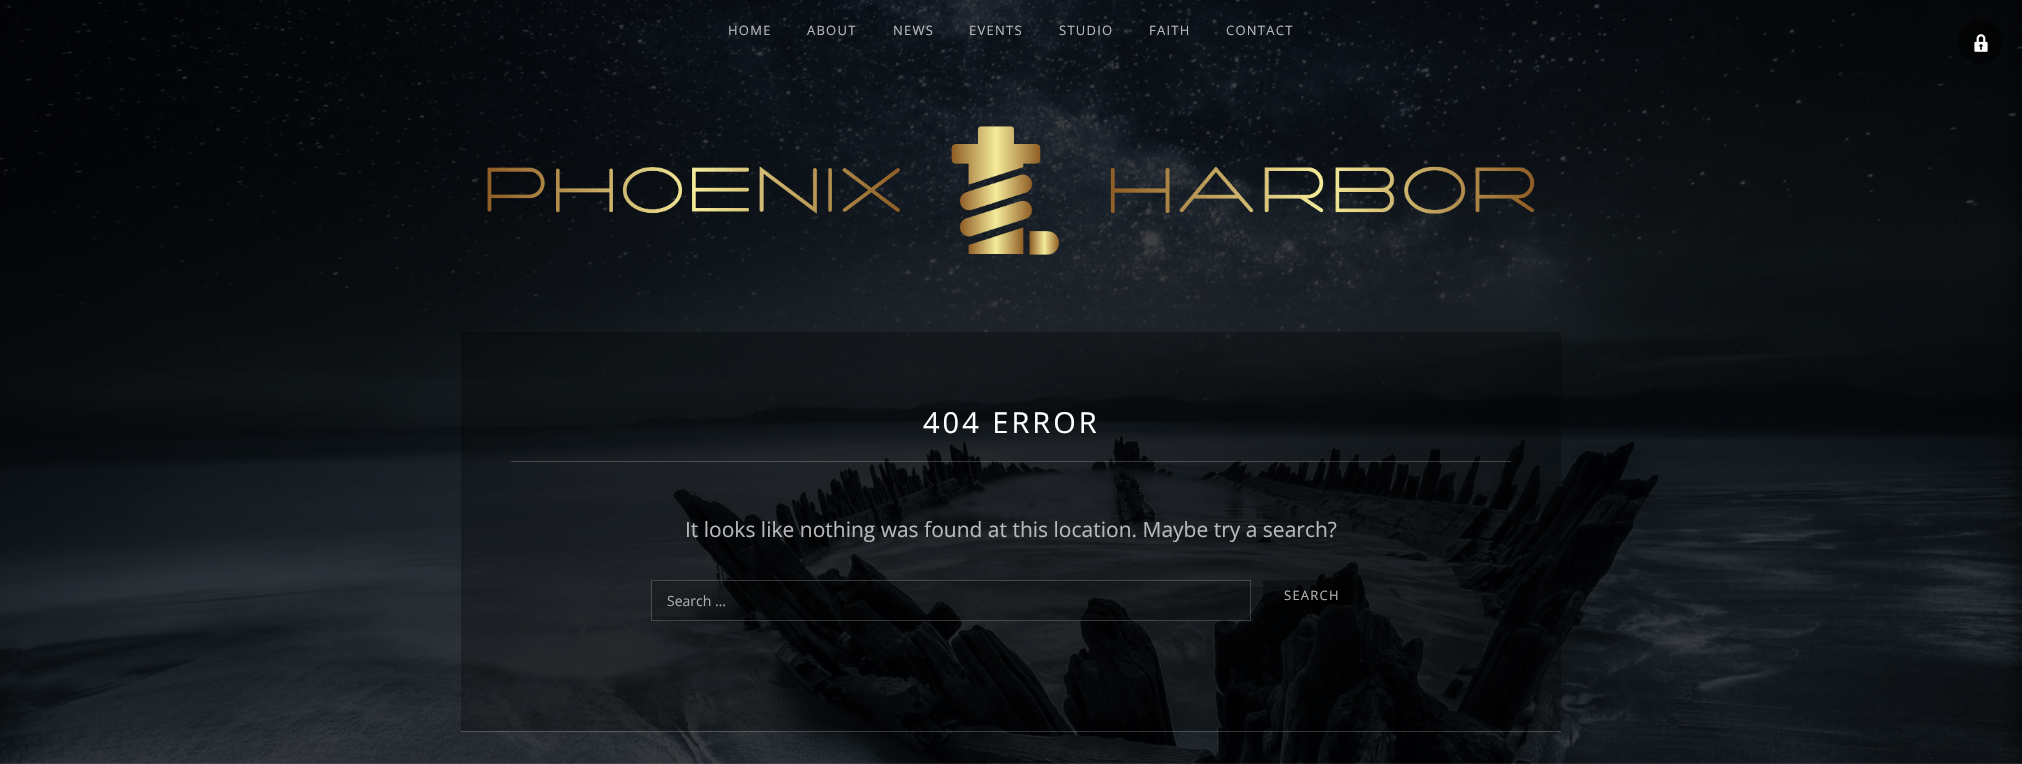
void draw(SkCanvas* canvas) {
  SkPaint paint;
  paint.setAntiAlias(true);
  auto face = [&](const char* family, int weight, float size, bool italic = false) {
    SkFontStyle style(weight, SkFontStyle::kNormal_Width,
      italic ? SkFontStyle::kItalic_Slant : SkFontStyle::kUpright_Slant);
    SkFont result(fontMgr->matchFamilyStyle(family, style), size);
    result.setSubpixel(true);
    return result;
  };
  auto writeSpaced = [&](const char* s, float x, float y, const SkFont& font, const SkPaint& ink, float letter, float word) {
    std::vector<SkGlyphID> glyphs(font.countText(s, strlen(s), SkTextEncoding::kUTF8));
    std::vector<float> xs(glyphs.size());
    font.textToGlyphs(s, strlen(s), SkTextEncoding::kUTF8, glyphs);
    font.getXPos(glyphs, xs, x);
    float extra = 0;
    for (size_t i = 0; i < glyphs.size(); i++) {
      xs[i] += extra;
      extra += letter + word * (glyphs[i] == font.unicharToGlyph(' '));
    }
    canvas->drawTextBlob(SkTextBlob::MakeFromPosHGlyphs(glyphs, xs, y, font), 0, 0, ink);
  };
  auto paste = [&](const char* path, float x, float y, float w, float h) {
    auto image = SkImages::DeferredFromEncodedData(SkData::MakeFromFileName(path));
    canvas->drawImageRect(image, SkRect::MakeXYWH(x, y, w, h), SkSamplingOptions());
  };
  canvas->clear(0xffffffff);
  paste("img/1.png", 0, 0, 2022, 764);
  paste("img/2.png", 487, 126, 1048, 129);
  {
    const struct { float x, y, w, h; SkColor color; } items[] = {
      {461, 332, 1100, 399, 0x4d000000},
      {511, 461, 1000, 1, 0x33ffffff},
      {651, 580, 600, 41, 0x33000000},
    };
    for (auto [x, y, w, h, color] : items) {
      paint.setColor(color);
      canvas->drawRect(SkRect::MakeXYWH(x, y, w, h), paint);
    }
  }
  paint.setStroke(true);
  paint.setStrokeWidth(1);
  paint.setColor(0x33ffffff);
  canvas->drawRect(SkRect::MakeXYWH(651.5f, 580.5f, 599, 40), paint);
  paint.setStroke(false);
  paint.setColor(0x66000000);
  canvas->drawRect(SkRect::MakeXYWH(1263, 580, 98, 31), paint);
  paint.setColor(0x33ffffff);
  canvas->drawRect(SkRect::MakeXYWH(461, 731, 1100, 1), paint);
  paint.setColor(0x66000000);
  paint.setMaskFilter(SkMaskFilter::MakeBlur(kNormal_SkBlurStyle, 10));
  canvas->drawRect(SkRect::MakeXYWH(2018, 0, 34, 764), paint);
  paint.setMaskFilter(nullptr);
  paint.setColor(0x99000000);
  canvas->drawCircle(1980, 42, 22, paint);
  paste("img/3.png", 1974, 34, 14, 18);
  auto f0 = face("Open Sans", 400, 13);
  paint.setColor(0xffb8b9ba);
  {
    const struct { const char* s; float x, y; } items[] = {
      {"HOME", 728, 35},
      {"ABOUT", 807, 35},
      {"NEWS", 893, 35},
      {"EVENTS", 969, 35},
      {"STUDIO", 1059, 35},
      {"FAITH", 1149, 35},
      {"CONTACT", 1226, 35},
    };
    for (auto [s, x, y] : items) {
      writeSpaced(s, x, y, f0, paint, 1.25f, 0);
    }
  }
  auto f1 = face("Open Sans", 400, 29);
  paint.setColor(0xffffffff);
  writeSpaced("404 ERROR", 923, 433, f1, paint, 3, 0);
  auto f2 = face("Open Sans", 400, 21);
  paint.setColor(0xffb8b9ba);
  canvas->drawString("It looks like nothing was found at this location. Maybe try a search?", 685, 537, f2, paint);
  auto f3 = face("Open Sans", 400, 14);
  paint.setColor(0xffababab);
  canvas->drawString("Search …", 667, 606, f3, paint);
  paint.setColor(0xffb3b3b4);
  writeSpaced("SEARCH", 1284, 600, f0, paint, 1.25f, 0);
}
